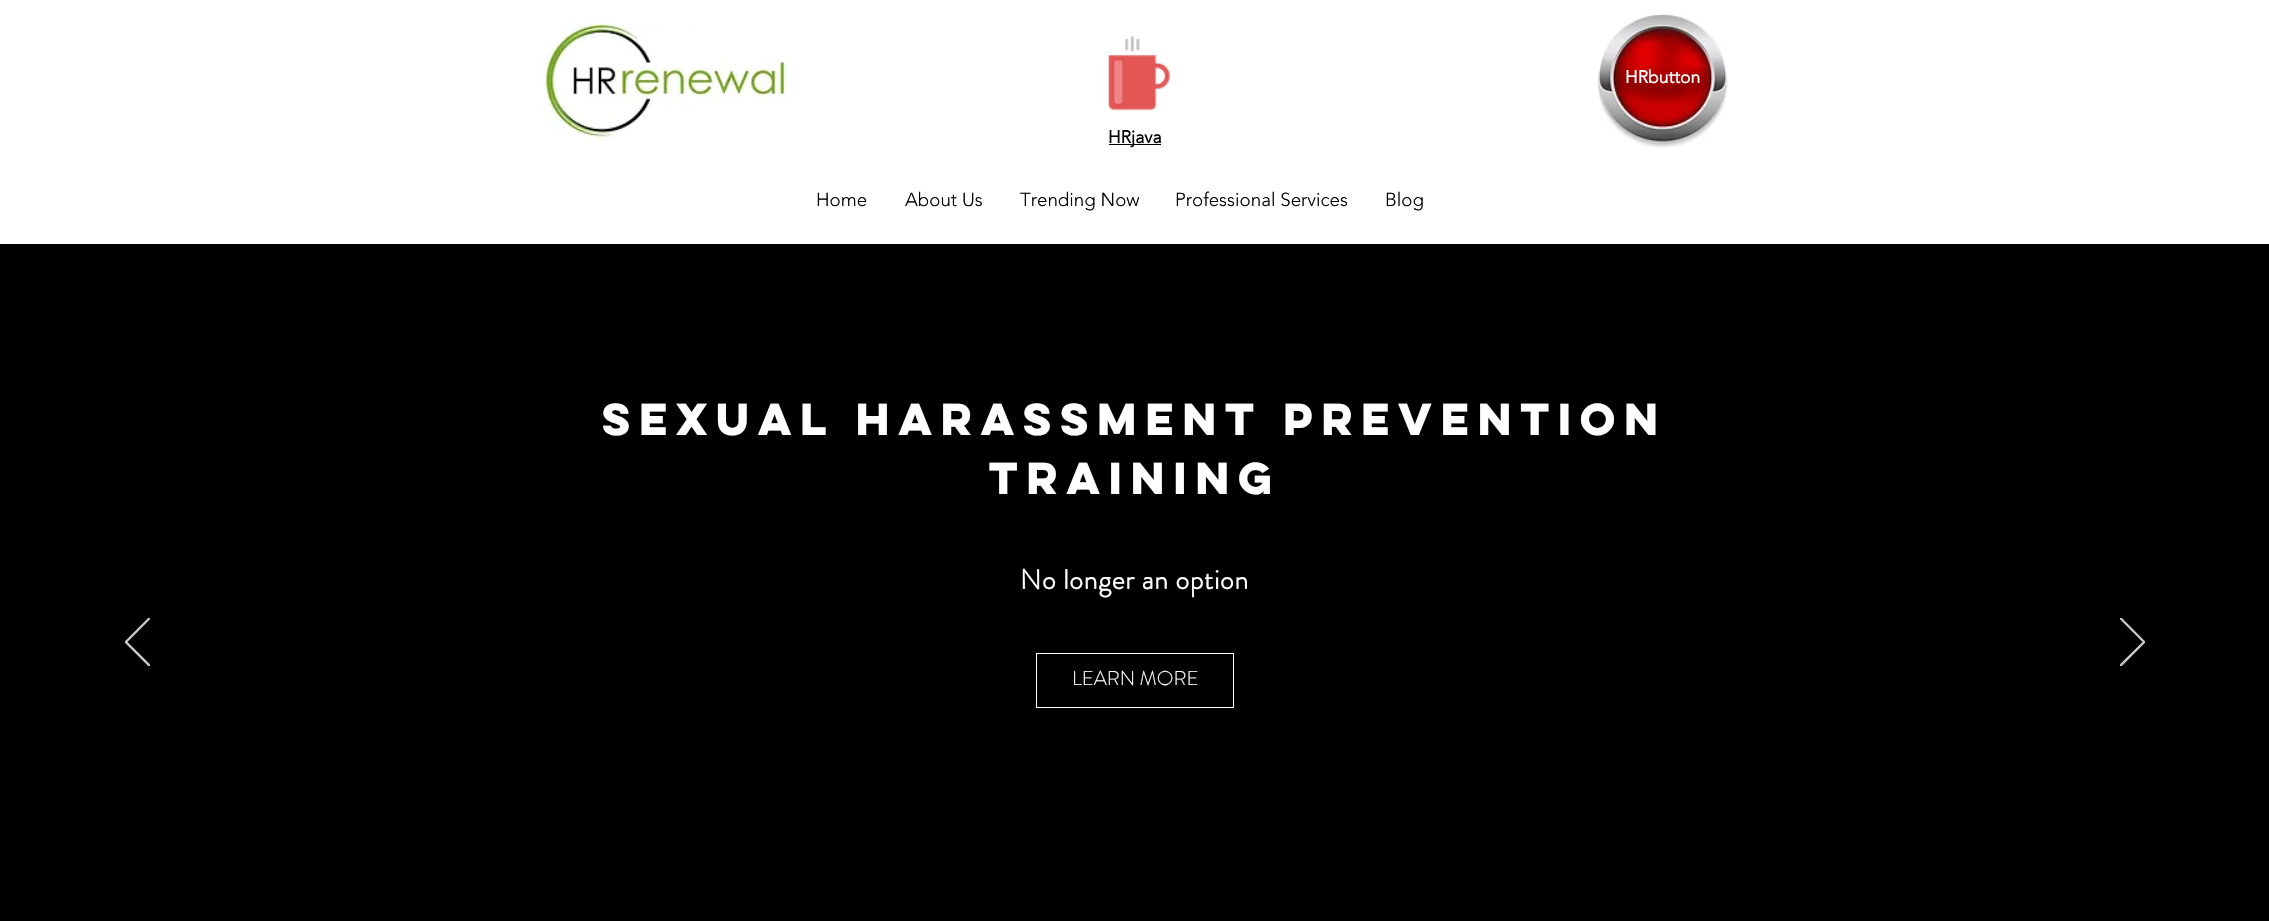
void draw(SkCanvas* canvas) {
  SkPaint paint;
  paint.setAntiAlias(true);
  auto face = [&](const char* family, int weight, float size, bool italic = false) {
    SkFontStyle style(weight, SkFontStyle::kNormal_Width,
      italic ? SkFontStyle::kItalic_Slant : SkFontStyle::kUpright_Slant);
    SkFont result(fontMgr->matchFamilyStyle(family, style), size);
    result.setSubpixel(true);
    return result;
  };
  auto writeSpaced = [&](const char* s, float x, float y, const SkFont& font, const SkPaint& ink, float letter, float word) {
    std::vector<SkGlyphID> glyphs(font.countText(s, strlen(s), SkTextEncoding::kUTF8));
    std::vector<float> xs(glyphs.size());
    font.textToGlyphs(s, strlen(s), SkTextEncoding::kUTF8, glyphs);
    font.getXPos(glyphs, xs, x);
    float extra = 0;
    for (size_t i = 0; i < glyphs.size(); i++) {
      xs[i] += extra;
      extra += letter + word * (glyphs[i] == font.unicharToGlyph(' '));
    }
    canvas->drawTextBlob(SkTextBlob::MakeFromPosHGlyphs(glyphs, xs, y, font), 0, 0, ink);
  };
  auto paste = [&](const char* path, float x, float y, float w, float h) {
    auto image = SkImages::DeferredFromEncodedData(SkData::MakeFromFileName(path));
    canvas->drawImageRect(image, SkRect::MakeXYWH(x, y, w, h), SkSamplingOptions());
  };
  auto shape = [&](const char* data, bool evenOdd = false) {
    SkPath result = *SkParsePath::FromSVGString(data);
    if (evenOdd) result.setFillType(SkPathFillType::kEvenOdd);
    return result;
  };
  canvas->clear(0xffffffff);
  paste("img/1.png", 542, 22, 246, 120);
  paste("img/2.png", 1108, 36, 63, 75);
  paste("img/3.png", 1597, 13, 131, 135);
  paint.setColor(0xff000000);
  canvas->drawRect(SkRect::MakeXYWH(1109, 144, 52, 1), paint);
  canvas->drawRect(SkRect::MakeXYWH(0, 244, 2269, 677), paint);
  canvas->save();
  canvas->clipRect(SkRect::MakeXYWH(125, 618, 25, 48));
  paint.setStroke(true);
  paint.setStrokeWidth(1.2f);
  paint.setColor(0xffcccccc);
  canvas->drawPath(shape("M149 666L125 642L149 618L150 618.5L126.5 642L150 665Z"), paint);
  canvas->restore();
  paint.setStrokeWidth(1);
  paint.setColor(0xffffffff);
  canvas->drawRect(SkRect::MakeXYWH(1036.5f, 653.5f, 197, 54), paint);
  canvas->save();
  canvas->clipRect(SkRect::MakeXYWH(2120, 618, 25, 48));
  paint.setStrokeWidth(1.2f);
  paint.setColor(0xffcccccc);
  canvas->drawPath(shape("M2121 666L2145 642L2121 618L2120 618.5L2143.5 642L2120 665Z"), paint);
  canvas->restore();
  auto f0 = face("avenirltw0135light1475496", 700, 17.5f);
  paint.setStroke(false);
  paint.setColor(0xffffffff);
  canvas->drawString("HRbutton", 1625, 83, f0, paint);
  paint.setColor(0xff000000);
  canvas->drawString("HRjava", 1108, 143, f0, paint);
  auto f1 = face("avenirltw0135light1475496", 300, 18.75f);
  {
    const struct { const char* s; float x, y; } items[] = {
      {"Home", 816, 206},
      {"About Us", 905, 206},
      {"Trending Now", 1020, 206},
      {"Professional Services", 1175, 206},
      {"Blog", 1385, 206},
    };
    for (auto [s, x, y] : items) {
      canvas->drawString(s, x, y, f1, paint);
    }
  }
  auto f2 = face("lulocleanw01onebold", 700, 40);
  paint.setColor(0xffffffff);
  canvas->drawString("Sexual Harassment Prevention", 602, 435, f2, paint);
  canvas->drawString("Training", 989, 494, f2, paint);
  auto f3 = face("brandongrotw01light", 700, 27.5f);
  writeSpaced("No longer an option", 1020, 589, f3, paint, 0.8f, 0);
  auto f4 = face("brandongrotw01light", 300, 20);
  canvas->drawString("LEARN MORE", 1072, 685, f4, paint);
}
